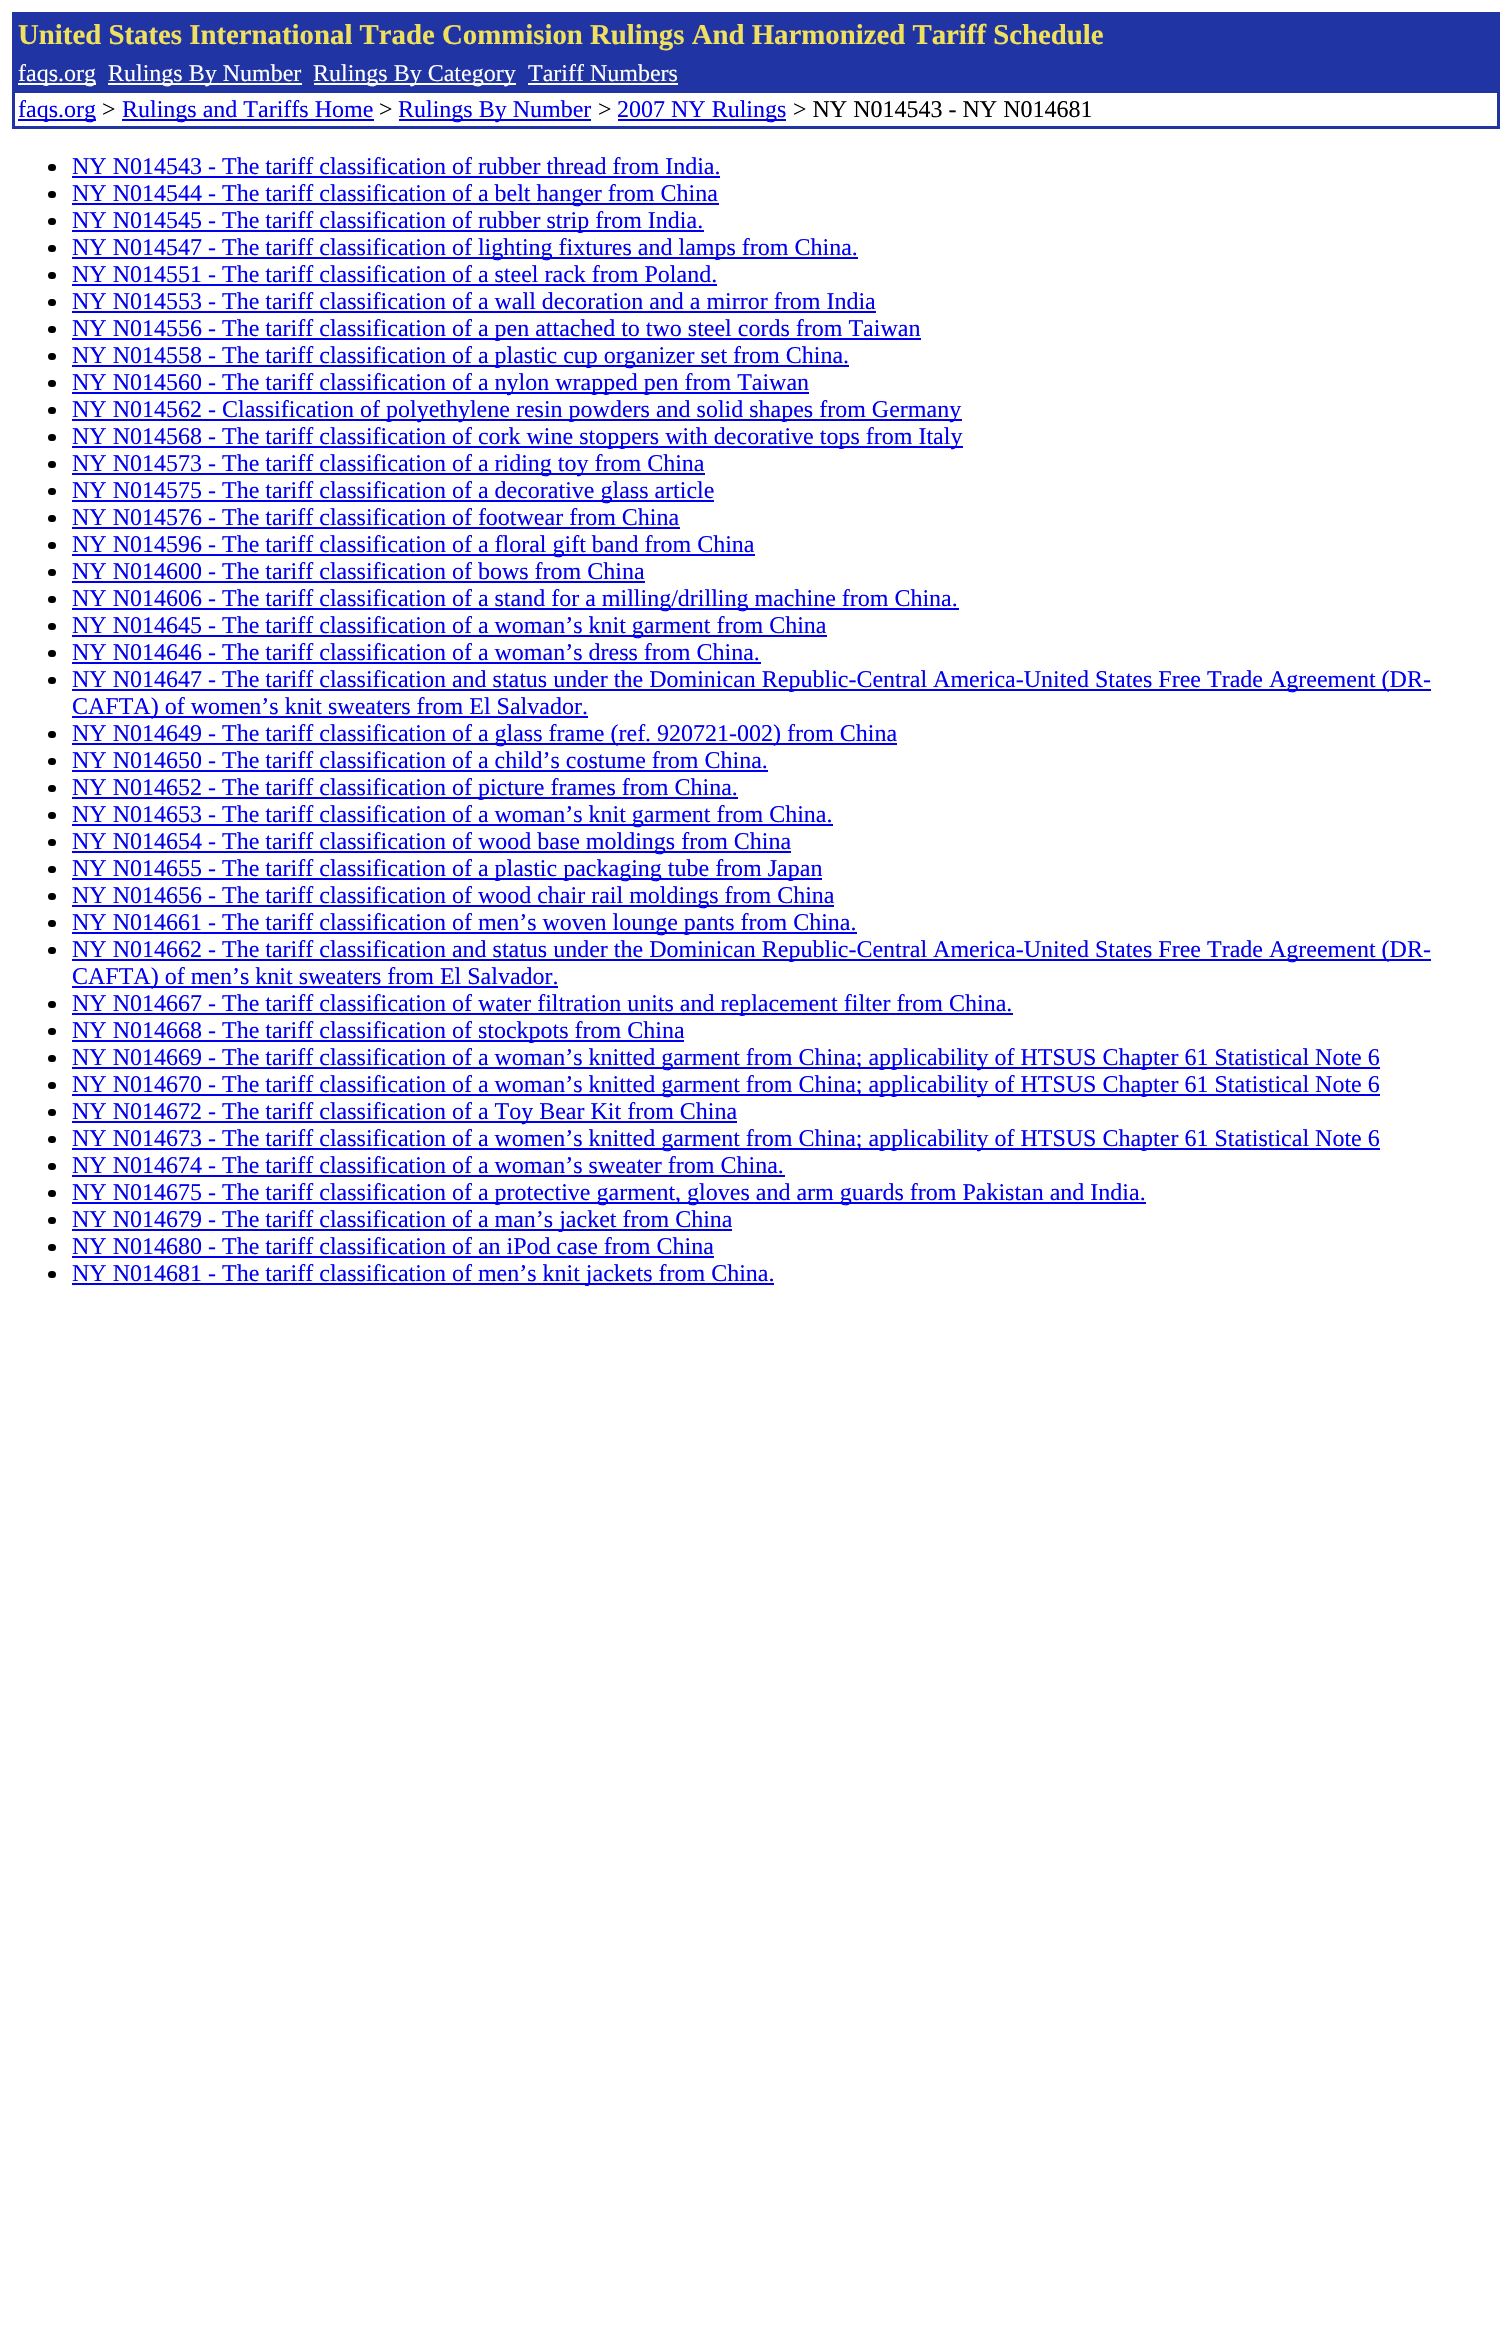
void draw(SkCanvas* canvas) {
  SkPaint paint;
  paint.setAntiAlias(true);
  auto face = [&](const char* family, int weight, float size, bool italic = false) {
    SkFontStyle style(weight, SkFontStyle::kNormal_Width,
      italic ? SkFontStyle::kItalic_Slant : SkFontStyle::kUpright_Slant);
    SkFont result(fontMgr->matchFamilyStyle(family, style), size);
    result.setSubpixel(true);
    return result;
  };
  canvas->clear(0xffffffff);
  {
    const struct { float x, y, w, h; SkColor color; } items[] = {
      {12, 12, 1488, 117, 0xff2134a3},
      {18, 83, 78, 2, 0xffffffff},
      {108, 83, 194, 2, 0xffffffff},
      {314, 83, 202, 2, 0xffffffff},
      {528, 83, 150, 2, 0xffffffff},
      {15, 93, 1482, 33, 0xffffffff},
      {18, 119, 78, 2, 0xff0000ee},
      {122, 119, 252, 2, 0xff0000ee},
      {399, 119, 192, 2, 0xff0000ee},
      {618, 119, 168, 2, 0xff0000ee},
    };
    for (auto [x, y, w, h, color] : items) {
      paint.setColor(color);
      canvas->drawRect(SkRect::MakeXYWH(x, y, w, h), paint);
    }
  }
  paint.setColor(0xff000000);
  canvas->drawRoundRect(SkRect::MakeXYWH(48, 164, 8, 7), 3.5f, 3.5f, paint);
  paint.setColor(0xff0000ee);
  canvas->drawRect(SkRect::MakeXYWH(72, 176, 648, 2), paint);
  paint.setColor(0xff000000);
  canvas->drawRoundRect(SkRect::MakeXYWH(48, 191, 8, 7), 3.5f, 3.5f, paint);
  paint.setColor(0xff0000ee);
  canvas->drawRect(SkRect::MakeXYWH(72, 203, 647, 2), paint);
  paint.setColor(0xff000000);
  canvas->drawRoundRect(SkRect::MakeXYWH(48, 218, 8, 7), 3.5f, 3.5f, paint);
  paint.setColor(0xff0000ee);
  canvas->drawRect(SkRect::MakeXYWH(72, 230, 632, 2), paint);
  paint.setColor(0xff000000);
  canvas->drawRoundRect(SkRect::MakeXYWH(48, 245, 8, 7), 3.5f, 3.5f, paint);
  paint.setColor(0xff0000ee);
  canvas->drawRect(SkRect::MakeXYWH(72, 257, 786, 2), paint);
  paint.setColor(0xff000000);
  canvas->drawRoundRect(SkRect::MakeXYWH(48, 272, 8, 7), 3.5f, 3.5f, paint);
  paint.setColor(0xff0000ee);
  canvas->drawRect(SkRect::MakeXYWH(72, 284, 645, 2), paint);
  paint.setColor(0xff000000);
  canvas->drawRoundRect(SkRect::MakeXYWH(48, 299, 8, 7), 3.5f, 3.5f, paint);
  paint.setColor(0xff0000ee);
  canvas->drawRect(SkRect::MakeXYWH(72, 311, 804, 2), paint);
  paint.setColor(0xff000000);
  canvas->drawRoundRect(SkRect::MakeXYWH(48, 326, 8, 7), 3.5f, 3.5f, paint);
  paint.setColor(0xff0000ee);
  canvas->drawRect(SkRect::MakeXYWH(72, 338, 849, 2), paint);
  paint.setColor(0xff000000);
  canvas->drawRoundRect(SkRect::MakeXYWH(48, 353, 8, 7), 3.5f, 3.5f, paint);
  paint.setColor(0xff0000ee);
  canvas->drawRect(SkRect::MakeXYWH(72, 365, 777, 2), paint);
  paint.setColor(0xff000000);
  canvas->drawRoundRect(SkRect::MakeXYWH(48, 380, 8, 7), 3.5f, 3.5f, paint);
  paint.setColor(0xff0000ee);
  canvas->drawRect(SkRect::MakeXYWH(72, 392, 737, 2), paint);
  paint.setColor(0xff000000);
  canvas->drawRoundRect(SkRect::MakeXYWH(48, 407, 8, 7), 3.5f, 3.5f, paint);
  paint.setColor(0xff0000ee);
  canvas->drawRect(SkRect::MakeXYWH(72, 419, 890, 2), paint);
  paint.setColor(0xff000000);
  canvas->drawRoundRect(SkRect::MakeXYWH(48, 434, 8, 7), 3.5f, 3.5f, paint);
  paint.setColor(0xff0000ee);
  canvas->drawRect(SkRect::MakeXYWH(72, 446, 891, 2), paint);
  paint.setColor(0xff000000);
  canvas->drawRoundRect(SkRect::MakeXYWH(48, 461, 8, 7), 3.5f, 3.5f, paint);
  paint.setColor(0xff0000ee);
  canvas->drawRect(SkRect::MakeXYWH(72, 473, 633, 2), paint);
  paint.setColor(0xff000000);
  canvas->drawRoundRect(SkRect::MakeXYWH(48, 488, 8, 7), 3.5f, 3.5f, paint);
  paint.setColor(0xff0000ee);
  canvas->drawRect(SkRect::MakeXYWH(72, 500, 642, 2), paint);
  paint.setColor(0xff000000);
  canvas->drawRoundRect(SkRect::MakeXYWH(48, 515, 8, 7), 3.5f, 3.5f, paint);
  paint.setColor(0xff0000ee);
  canvas->drawRect(SkRect::MakeXYWH(72, 527, 608, 2), paint);
  paint.setColor(0xff000000);
  canvas->drawRoundRect(SkRect::MakeXYWH(48, 542, 8, 7), 3.5f, 3.5f, paint);
  paint.setColor(0xff0000ee);
  canvas->drawRect(SkRect::MakeXYWH(72, 554, 683, 2), paint);
  paint.setColor(0xff000000);
  canvas->drawRoundRect(SkRect::MakeXYWH(48, 569, 8, 7), 3.5f, 3.5f, paint);
  paint.setColor(0xff0000ee);
  canvas->drawRect(SkRect::MakeXYWH(72, 581, 573, 2), paint);
  paint.setColor(0xff000000);
  canvas->drawRoundRect(SkRect::MakeXYWH(48, 596, 8, 7), 3.5f, 3.5f, paint);
  paint.setColor(0xff0000ee);
  canvas->drawRect(SkRect::MakeXYWH(72, 608, 887, 2), paint);
  paint.setColor(0xff000000);
  canvas->drawRoundRect(SkRect::MakeXYWH(48, 623, 8, 7), 3.5f, 3.5f, paint);
  paint.setColor(0xff0000ee);
  canvas->drawRect(SkRect::MakeXYWH(72, 635, 755, 2), paint);
  paint.setColor(0xff000000);
  canvas->drawRoundRect(SkRect::MakeXYWH(48, 650, 8, 7), 3.5f, 3.5f, paint);
  paint.setColor(0xff0000ee);
  canvas->drawRect(SkRect::MakeXYWH(72, 662, 689, 2), paint);
  paint.setColor(0xff000000);
  canvas->drawRoundRect(SkRect::MakeXYWH(48, 677, 8, 7), 3.5f, 3.5f, paint);
  paint.setColor(0xff0000ee);
  canvas->drawRect(SkRect::MakeXYWH(72, 689, 1359, 2), paint);
  canvas->drawRect(SkRect::MakeXYWH(72, 716, 516, 2), paint);
  paint.setColor(0xff000000);
  canvas->drawRoundRect(SkRect::MakeXYWH(48, 731, 8, 7), 3.5f, 3.5f, paint);
  paint.setColor(0xff0000ee);
  canvas->drawRect(SkRect::MakeXYWH(72, 743, 825, 2), paint);
  paint.setColor(0xff000000);
  canvas->drawRoundRect(SkRect::MakeXYWH(48, 758, 8, 7), 3.5f, 3.5f, paint);
  paint.setColor(0xff0000ee);
  canvas->drawRect(SkRect::MakeXYWH(72, 770, 696, 2), paint);
  paint.setColor(0xff000000);
  canvas->drawRoundRect(SkRect::MakeXYWH(48, 785, 8, 7), 3.5f, 3.5f, paint);
  paint.setColor(0xff0000ee);
  canvas->drawRect(SkRect::MakeXYWH(72, 797, 666, 2), paint);
  paint.setColor(0xff000000);
  canvas->drawRoundRect(SkRect::MakeXYWH(48, 812, 8, 7), 3.5f, 3.5f, paint);
  paint.setColor(0xff0000ee);
  canvas->drawRect(SkRect::MakeXYWH(72, 824, 761, 2), paint);
  paint.setColor(0xff000000);
  canvas->drawRoundRect(SkRect::MakeXYWH(48, 839, 8, 7), 3.5f, 3.5f, paint);
  paint.setColor(0xff0000ee);
  canvas->drawRect(SkRect::MakeXYWH(72, 851, 719, 2), paint);
  paint.setColor(0xff000000);
  canvas->drawRoundRect(SkRect::MakeXYWH(48, 866, 8, 7), 3.5f, 3.5f, paint);
  paint.setColor(0xff0000ee);
  canvas->drawRect(SkRect::MakeXYWH(72, 878, 750, 2), paint);
  paint.setColor(0xff000000);
  canvas->drawRoundRect(SkRect::MakeXYWH(48, 893, 8, 7), 3.5f, 3.5f, paint);
  paint.setColor(0xff0000ee);
  canvas->drawRect(SkRect::MakeXYWH(72, 905, 762, 2), paint);
  paint.setColor(0xff000000);
  canvas->drawRoundRect(SkRect::MakeXYWH(48, 920, 8, 7), 3.5f, 3.5f, paint);
  paint.setColor(0xff0000ee);
  canvas->drawRect(SkRect::MakeXYWH(72, 932, 785, 2), paint);
  paint.setColor(0xff000000);
  canvas->drawRoundRect(SkRect::MakeXYWH(48, 947, 8, 7), 3.5f, 3.5f, paint);
  paint.setColor(0xff0000ee);
  canvas->drawRect(SkRect::MakeXYWH(72, 959, 1359, 2), paint);
  canvas->drawRect(SkRect::MakeXYWH(72, 986, 486, 2), paint);
  paint.setColor(0xff000000);
  canvas->drawRoundRect(SkRect::MakeXYWH(48, 1001, 8, 7), 3.5f, 3.5f, paint);
  paint.setColor(0xff0000ee);
  canvas->drawRect(SkRect::MakeXYWH(72, 1013, 941, 2), paint);
  paint.setColor(0xff000000);
  canvas->drawRoundRect(SkRect::MakeXYWH(48, 1028, 8, 7), 3.5f, 3.5f, paint);
  paint.setColor(0xff0000ee);
  canvas->drawRect(SkRect::MakeXYWH(72, 1040, 612, 2), paint);
  paint.setColor(0xff000000);
  canvas->drawRoundRect(SkRect::MakeXYWH(48, 1055, 8, 7), 3.5f, 3.5f, paint);
  paint.setColor(0xff0000ee);
  canvas->drawRect(SkRect::MakeXYWH(72, 1067, 1308, 2), paint);
  paint.setColor(0xff000000);
  canvas->drawRoundRect(SkRect::MakeXYWH(48, 1082, 8, 7), 3.5f, 3.5f, paint);
  paint.setColor(0xff0000ee);
  canvas->drawRect(SkRect::MakeXYWH(72, 1094, 1308, 2), paint);
  paint.setColor(0xff000000);
  canvas->drawRoundRect(SkRect::MakeXYWH(48, 1109, 8, 7), 3.5f, 3.5f, paint);
  paint.setColor(0xff0000ee);
  canvas->drawRect(SkRect::MakeXYWH(72, 1121, 665, 2), paint);
  paint.setColor(0xff000000);
  canvas->drawRoundRect(SkRect::MakeXYWH(48, 1136, 8, 7), 3.5f, 3.5f, paint);
  paint.setColor(0xff0000ee);
  canvas->drawRect(SkRect::MakeXYWH(72, 1148, 1308, 2), paint);
  paint.setColor(0xff000000);
  canvas->drawRoundRect(SkRect::MakeXYWH(48, 1163, 8, 7), 3.5f, 3.5f, paint);
  paint.setColor(0xff0000ee);
  canvas->drawRect(SkRect::MakeXYWH(72, 1175, 713, 2), paint);
  paint.setColor(0xff000000);
  canvas->drawRoundRect(SkRect::MakeXYWH(48, 1190, 8, 7), 3.5f, 3.5f, paint);
  paint.setColor(0xff0000ee);
  canvas->drawRect(SkRect::MakeXYWH(72, 1202, 1074, 2), paint);
  paint.setColor(0xff000000);
  canvas->drawRoundRect(SkRect::MakeXYWH(48, 1217, 8, 7), 3.5f, 3.5f, paint);
  paint.setColor(0xff0000ee);
  canvas->drawRect(SkRect::MakeXYWH(72, 1229, 660, 2), paint);
  paint.setColor(0xff000000);
  canvas->drawRoundRect(SkRect::MakeXYWH(48, 1244, 8, 7), 3.5f, 3.5f, paint);
  paint.setColor(0xff0000ee);
  canvas->drawRect(SkRect::MakeXYWH(72, 1256, 642, 2), paint);
  paint.setColor(0xff000000);
  canvas->drawRoundRect(SkRect::MakeXYWH(48, 1271, 8, 7), 3.5f, 3.5f, paint);
  paint.setColor(0xff0000ee);
  canvas->drawRect(SkRect::MakeXYWH(72, 1283, 702, 2), paint);
  auto f0 = face("Liberation Serif", 700, 28.8f);
  paint.setColor(0xffefe15d);
  canvas->drawString("United States International Trade Commision Rulings And Harmonized Tariff Schedule", 18, 44, f0, paint);
  auto f1 = face("Liberation Serif", 400, 24);
  paint.setColor(0xffffffff);
  {
    const struct { const char* s; float x, y; } items[] = {
      {"faqs.org", 18, 81},
      {"Rulings By Number", 108, 81},
      {"Rulings By Category", 313, 81},
      {"Tariff Numbers", 528, 81},
    };
    for (auto [s, x, y] : items) {
      canvas->drawString(s, x, y, f1, paint);
    }
  }
  paint.setColor(0xff0000ee);
  canvas->drawString("faqs.org", 18, 117, f1, paint);
  paint.setColor(0xff000000);
  canvas->drawString(">", 102, 117, f1, paint);
  paint.setColor(0xff0000ee);
  canvas->drawString("Rulings and Tariffs Home", 122, 117, f1, paint);
  paint.setColor(0xff000000);
  canvas->drawString(">", 379, 117, f1, paint);
  paint.setColor(0xff0000ee);
  canvas->drawString("Rulings By Number", 398, 117, f1, paint);
  paint.setColor(0xff000000);
  canvas->drawString(">", 598, 117, f1, paint);
  paint.setColor(0xff0000ee);
  canvas->drawString("2007 NY Rulings", 617, 117, f1, paint);
  paint.setColor(0xff000000);
  canvas->drawString("> NY N014543 - NY N014681", 793, 117, f1, paint);
  paint.setColor(0xff0000ee);
  {
    const struct { const char* s; float x, y; } items[] = {
      {"NY N014543 - The tariff classification of rubber thread from India.", 72, 174},
      {"NY N014544 - The tariff classification of a belt hanger from China", 72, 201},
      {"NY N014545 - The tariff classification of rubber strip from India.", 72, 228},
      {"NY N014547 - The tariff classification of lighting fixtures and lamps from China.", 72, 255},
      {"NY N014551 - The tariff classification of a steel rack from Poland.", 72, 282},
      {"NY N014553 - The tariff classification of a wall decoration and a mirror from India", 72, 309},
      {"NY N014556 - The tariff classification of a pen attached to two steel cords from Taiwan", 72, 336},
      {"NY N014558 - The tariff classification of a plastic cup organizer set from China.", 72, 363},
      {"NY N014560 - The tariff classification of a nylon wrapped pen from Taiwan", 72, 390},
      {"NY N014562 - Classification of polyethylene resin powders and solid shapes from Germany", 72, 417},
      {"NY N014568 - The tariff classification of cork wine stoppers with decorative tops from Italy", 72, 444},
      {"NY N014573 - The tariff classification of a riding toy from China", 72, 471},
      {"NY N014575 - The tariff classification of a decorative glass article", 72, 498},
      {"NY N014576 - The tariff classification of footwear from China", 72, 525},
      {"NY N014596 - The tariff classification of a floral gift band from China", 72, 552},
      {"NY N014600 - The tariff classification of bows from China", 72, 579},
      {"NY N014606 - The tariff classification of a stand for a milling/drilling machine from China.", 72, 606},
      {"NY N014645 - The tariff classification of a woman’s knit garment from China", 72, 633},
      {"NY N014646 - The tariff classification of a woman’s dress from China.", 72, 660},
      {"NY N014647 - The tariff classification and status under the Dominican Republic-Central America-United States Free Trade Agreement (DR-", 72, 687},
      {"CAFTA) of women’s knit sweaters from El Salvador.", 72, 714},
      {"NY N014649 - The tariff classification of a glass frame (ref. 920721-002) from China", 72, 741},
      {"NY N014650 - The tariff classification of a child’s costume from China.", 72, 768},
      {"NY N014652 - The tariff classification of picture frames from China.", 72, 795},
      {"NY N014653 - The tariff classification of a woman’s knit garment from China.", 72, 822},
      {"NY N014654 - The tariff classification of wood base moldings from China", 72, 849},
      {"NY N014655 - The tariff classification of a plastic packaging tube from Japan", 72, 876},
      {"NY N014656 - The tariff classification of wood chair rail moldings from China", 72, 903},
      {"NY N014661 - The tariff classification of men’s woven lounge pants from China.", 72, 930},
      {"NY N014662 - The tariff classification and status under the Dominican Republic-Central America-United States Free Trade Agreement (DR-", 72, 957},
      {"CAFTA) of men’s knit sweaters from El Salvador.", 72, 984},
      {"NY N014667 - The tariff classification of water filtration units and replacement filter from China.", 72, 1011},
      {"NY N014668 - The tariff classification of stockpots from China", 72, 1038},
      {"NY N014669 - The tariff classification of a woman’s knitted garment from China; applicability of HTSUS Chapter 61 Statistical Note 6", 72, 1065},
      {"NY N014670 - The tariff classification of a woman’s knitted garment from China; applicability of HTSUS Chapter 61 Statistical Note 6", 72, 1092},
      {"NY N014672 - The tariff classification of a Toy Bear Kit from China", 72, 1119},
      {"NY N014673 - The tariff classification of a women’s knitted garment from China; applicability of HTSUS Chapter 61 Statistical Note 6", 72, 1146},
      {"NY N014674 - The tariff classification of a woman’s sweater from China.", 72, 1173},
      {"NY N014675 - The tariff classification of a protective garment, gloves and arm guards from Pakistan and India.", 72, 1200},
      {"NY N014679 - The tariff classification of a man’s jacket from China", 72, 1227},
      {"NY N014680 - The tariff classification of an iPod case from China", 72, 1254},
      {"NY N014681 - The tariff classification of men’s knit jackets from China.", 72, 1281},
    };
    for (auto [s, x, y] : items) {
      canvas->drawString(s, x, y, f1, paint);
    }
  }
}
